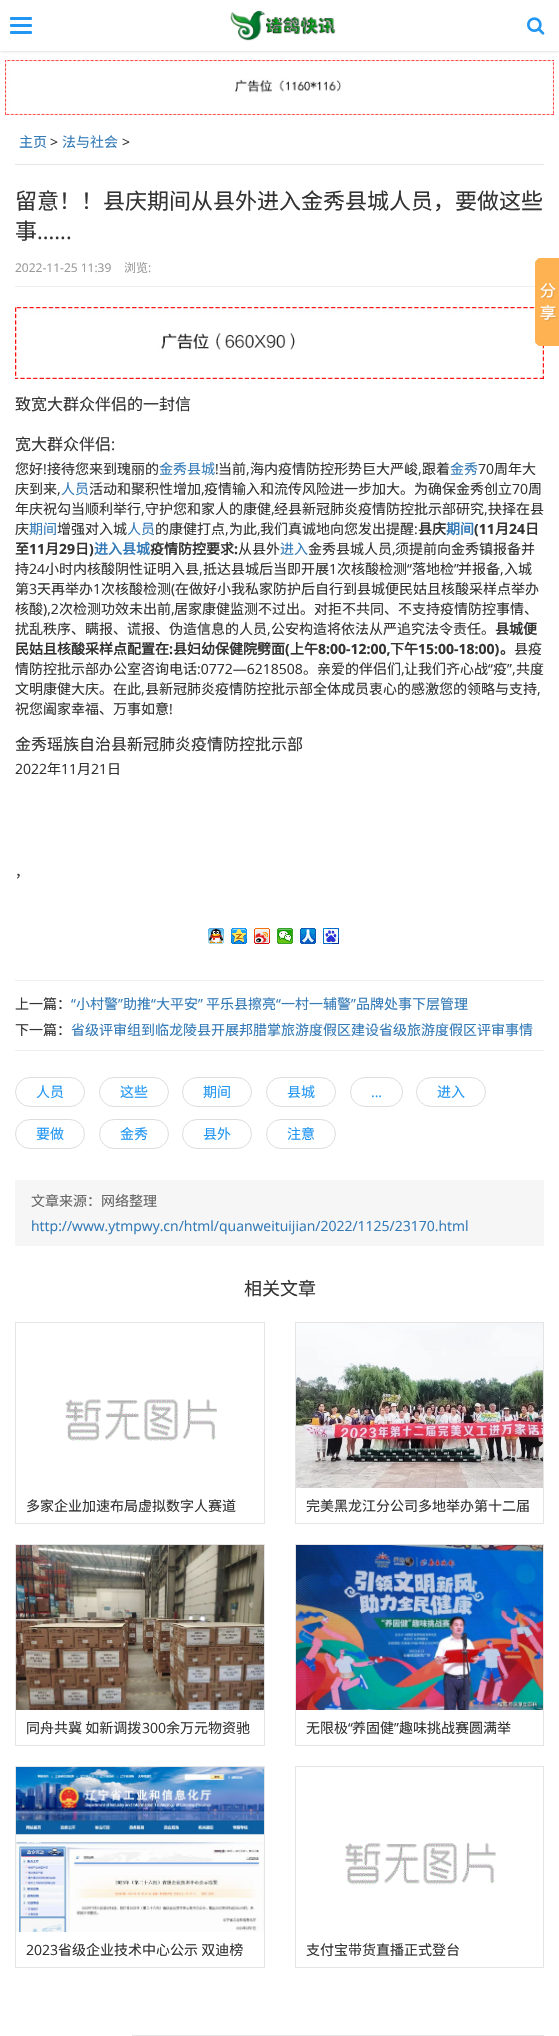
void draw(SkCanvas* canvas) {
  SkPaint paint;
  paint.setAntiAlias(true);
  auto face = [&](const char* family, int weight, float size, bool italic = false) {
    SkFontStyle style(weight, SkFontStyle::kNormal_Width,
      italic ? SkFontStyle::kItalic_Slant : SkFontStyle::kUpright_Slant);
    SkFont result(fontMgr->matchFamilyStyle(family, style), size);
    result.setSubpixel(true);
    return result;
  };
  auto paste = [&](const char* path, float x, float y, float w, float h) {
    auto image = SkImages::DeferredFromEncodedData(SkData::MakeFromFileName(path));
    canvas->drawImageRect(image, SkRect::MakeXYWH(x, y, w, h), SkSamplingOptions());
  };
  canvas->clear(0xffffffff);
  paint.setColor(0x33000000);
  paint.setMaskFilter(SkMaskFilter::MakeBlur(kNormal_SkBlurStyle, 1.5f));
  canvas->drawRect(SkRect::MakeXYWH(0, 0, 559, 51), paint);
  paint.setMaskFilter(nullptr);
  paint.setColor(0xffffffff);
  canvas->drawRect(SkRect::MakeXYWH(0, 0, 559, 51), paint);
  paint.setColor(0xff2196f3);
  canvas->drawRoundRect(SkRect::MakeXYWH(10, 17, 22, 3), 1, 1, paint);
  canvas->drawRoundRect(SkRect::MakeXYWH(10, 24, 22, 3), 1, 1, paint);
  canvas->drawRoundRect(SkRect::MakeXYWH(10, 31, 22, 3), 1, 1, paint);
  paste("img/1.png", 230, 10, 106, 31);
  paste("img/2.png", 527, 17, 18, 18);
  paste("img/3.png", 5, 60, 549, 55);
  paint.setColor(0xffe5e5e5);
  canvas->drawRect(SkRect::MakeXYWH(15, 164, 529, 1), paint);
  paint.setColor(0xffeeeeee);
  canvas->drawRect(SkRect::MakeXYWH(15, 286, 520, 1), paint);
  paste("img/4.png", 15, 307, 529, 72);
  paste("img/5.png", 208, 928, 16, 16);
  paste("img/6.png", 231, 928, 16, 16);
  paste("img/7.png", 254, 928, 16, 16);
  paste("img/8.png", 277, 928, 16, 16);
  paste("img/9.png", 300, 928, 16, 16);
  paste("img/10.png", 323, 928, 16, 16);
  canvas->drawRect(SkRect::MakeXYWH(15, 980, 529, 1), paint);
  canvas->drawRect(SkRect::MakeXYWH(15, 1050, 529, 1), paint);
  paint.setStroke(true);
  paint.setStrokeWidth(1);
  paint.setColor(0xffdddddd);
  canvas->drawRoundRect(SkRect::MakeXYWH(15.5f, 1077.5f, 69, 29), 14.5f, 14.5f, paint);
  canvas->drawRoundRect(SkRect::MakeXYWH(99.5f, 1077.5f, 69, 29), 14.5f, 14.5f, paint);
  canvas->drawRoundRect(SkRect::MakeXYWH(182.5f, 1077.5f, 69, 29), 14.5f, 14.5f, paint);
  canvas->drawRoundRect(SkRect::MakeXYWH(266.5f, 1077.5f, 69, 29), 14.5f, 14.5f, paint);
  canvas->drawRoundRect(SkRect::MakeXYWH(350.5f, 1077.5f, 52, 29), 14.5f, 14.5f, paint);
  canvas->drawRoundRect(SkRect::MakeXYWH(416.5f, 1077.5f, 69, 29), 14.5f, 14.5f, paint);
  canvas->drawRoundRect(SkRect::MakeXYWH(15.5f, 1119.5f, 69, 29), 14.5f, 14.5f, paint);
  canvas->drawRoundRect(SkRect::MakeXYWH(99.5f, 1119.5f, 69, 29), 14.5f, 14.5f, paint);
  canvas->drawRoundRect(SkRect::MakeXYWH(182.5f, 1119.5f, 69, 29), 14.5f, 14.5f, paint);
  canvas->drawRoundRect(SkRect::MakeXYWH(266.5f, 1119.5f, 69, 29), 14.5f, 14.5f, paint);
  paint.setStroke(false);
  paint.setColor(0xfff6f6f6);
  canvas->drawRect(SkRect::MakeXYWH(15, 1180, 529, 66), paint);
  paint.setStroke(true);
  paint.setColor(0xffe5e5e5);
  canvas->drawRect(SkRect::MakeXYWH(15.5f, 1322.5f, 249, 201), paint);
  paste("img/11.png", 65, 1399, 152, 42);
  canvas->drawRect(SkRect::MakeXYWH(295.5f, 1322.5f, 248, 201), paint);
  paste("img/12.png", 296, 1323, 247, 165);
  canvas->drawRect(SkRect::MakeXYWH(15.5f, 1544.5f, 249, 201), paint);
  paste("img/13.png", 16, 1545, 248, 165);
  canvas->drawRect(SkRect::MakeXYWH(295.5f, 1544.5f, 248, 201), paint);
  paste("img/14.png", 296, 1545, 247, 165);
  canvas->drawRect(SkRect::MakeXYWH(15.5f, 1766.5f, 249, 201), paint);
  paste("img/15.png", 16, 1767, 248, 165);
  canvas->drawRect(SkRect::MakeXYWH(295.5f, 1766.5f, 248, 201), paint);
  paste("img/16.png", 345, 1843, 151, 42);
  paint.setStroke(false);
  canvas->drawRect(SkRect::MakeXYWH(132, 2035, 412, 1), paint);
  paste("img/17.png", 535, 258, 24, 88);
  auto f0 = face("Noto Sans CJK SC", 400, 14);
  paint.setColor(0xff337ab7);
  canvas->drawString("主页", 19, 147, f0, paint);
  auto f1 = face("Open Sans", 400, 14);
  paint.setColor(0xff333333);
  canvas->drawString(">", 50, 147, f1, paint);
  paint.setColor(0xff337ab7);
  canvas->drawString("法与社会", 62, 147, f0, paint);
  paint.setColor(0xff333333);
  canvas->drawString(">", 122, 147, f1, paint);
  auto f2 = face("Noto Sans CJK SC", 400, 22);
  canvas->drawString("留意！！县庆期间从县外进入金秀县城人员，要做这些", 15, 209, f2, paint);
  canvas->drawString("事", 15, 239, f2, paint);
  auto f3 = face("Open Sans", 400, 22);
  canvas->drawString("......", 37, 239, f3, paint);
  auto f4 = face("Open Sans", 400, 12);
  paint.setColor(0xff999999);
  canvas->drawString("2022-11-25 11:39", 15, 272, f4, paint);
  auto f5 = face("Noto Sans CJK SC", 400, 12);
  canvas->drawString("浏览", 124, 272, f5, paint);
  canvas->drawString(":", 148, 272, f4, paint);
  auto f6 = face("Noto Sans CJK SC", 400, 16);
  paint.setColor(0xff333333);
  canvas->drawString("致宽大群众伴侣的一封信", 15, 410, f6, paint);
  canvas->drawString("宽大群众伴侣", 15, 450, f6, paint);
  auto f7 = face("Open Sans", 400, 16);
  canvas->drawString(":", 111, 450, f7, paint);
  canvas->drawString("您好", 15, 474, f0, paint);
  canvas->drawString("!", 43, 474, f1, paint);
  canvas->drawString("接待您来到瑰丽的", 47, 474, f0, paint);
  paint.setColor(0xff337ab7);
  canvas->drawString("金秀县城", 159, 474, f0, paint);
  paint.setColor(0xff333333);
  canvas->drawString("!", 215, 474, f1, paint);
  canvas->drawString("当前", 218, 474, f0, paint);
  canvas->drawString(",", 246, 474, f1, paint);
  canvas->drawString("海内疫情防控形势巨大严峻", 250, 474, f0, paint);
  canvas->drawString(",", 418, 474, f1, paint);
  canvas->drawString("跟着", 422, 474, f0, paint);
  paint.setColor(0xff337ab7);
  canvas->drawString("金秀", 450, 474, f0, paint);
  paint.setColor(0xff333333);
  canvas->drawString("70", 478, 474, f1, paint);
  canvas->drawString("周年大", 494, 474, f0, paint);
  canvas->drawString("庆到来", 15, 494, f0, paint);
  canvas->drawString(",", 57, 494, f1, paint);
  paint.setColor(0xff337ab7);
  canvas->drawString("人员", 61, 494, f0, paint);
  paint.setColor(0xff333333);
  canvas->drawString("活动和聚积性增加", 89, 494, f0, paint);
  canvas->drawString(",", 201, 494, f1, paint);
  canvas->drawString("疫情输入和流传风险进一步加大。为确保金秀创立", 204, 494, f0, paint);
  canvas->drawString("70", 512, 494, f1, paint);
  canvas->drawString("周", 528, 494, f0, paint);
  canvas->drawString("年庆祝勾当顺利举行", 15, 514, f0, paint);
  canvas->drawString(",", 141, 514, f1, paint);
  canvas->drawString("守护您和家人的康健", 145, 514, f0, paint);
  canvas->drawString(",", 271, 514, f1, paint);
  canvas->drawString("经县新冠肺炎疫情防控批示部研究", 274, 514, f0, paint);
  canvas->drawString(",", 484, 514, f1, paint);
  canvas->drawString("抉择在县", 488, 514, f0, paint);
  canvas->drawString("庆", 15, 534, f0, paint);
  paint.setColor(0xff337ab7);
  canvas->drawString("期间", 29, 534, f0, paint);
  paint.setColor(0xff333333);
  canvas->drawString("增强对入城", 57, 534, f0, paint);
  paint.setColor(0xff337ab7);
  canvas->drawString("人员", 127, 534, f0, paint);
  paint.setColor(0xff333333);
  canvas->drawString("的康健打点", 155, 534, f0, paint);
  canvas->drawString(",", 225, 534, f1, paint);
  canvas->drawString("为此", 229, 534, f0, paint);
  canvas->drawString(",", 257, 534, f1, paint);
  canvas->drawString("我们真诚地向您发出提醒", 260, 534, f0, paint);
  canvas->drawString(":", 414, 534, f1, paint);
  auto f8 = face("Noto Sans CJK SC", 700, 14);
  canvas->drawString("县庆", 418, 534, f8, paint);
  paint.setColor(0xff337ab7);
  canvas->drawString("期间", 446, 534, f8, paint);
  auto f9 = face("Open Sans", 700, 14);
  paint.setColor(0xff333333);
  canvas->drawString("(11", 474, 534, f9, paint);
  canvas->drawString("月", 495, 534, f8, paint);
  canvas->drawString("24", 509, 534, f9, paint);
  canvas->drawString("日", 525, 534, f8, paint);
  canvas->drawString("至", 15, 554, f8, paint);
  canvas->drawString("11", 29, 554, f9, paint);
  canvas->drawString("月", 45, 554, f8, paint);
  canvas->drawString("29", 59, 554, f9, paint);
  canvas->drawString("日", 75, 554, f8, paint);
  canvas->drawString(")", 89, 554, f9, paint);
  paint.setColor(0xff337ab7);
  canvas->drawString("进入县城", 94, 554, f8, paint);
  paint.setColor(0xff333333);
  canvas->drawString("疫情防控要求", 150, 554, f8, paint);
  canvas->drawString(":", 234, 554, f9, paint);
  canvas->drawString("从县外", 238, 554, f0, paint);
  paint.setColor(0xff337ab7);
  canvas->drawString("进入", 280, 554, f0, paint);
  paint.setColor(0xff333333);
  canvas->drawString("金秀县城人员", 308, 554, f0, paint);
  canvas->drawString(",", 392, 554, f1, paint);
  canvas->drawString("须提前向金秀镇报备并", 395, 554, f0, paint);
  canvas->drawString("持", 15, 574, f0, paint);
  canvas->drawString("24", 29, 574, f1, paint);
  canvas->drawString("小时内核酸阴性证明入县", 45, 574, f0, paint);
  canvas->drawString("抵达县城后当即开展", 203, 574, f0, paint);
  canvas->drawString("1", 329, 574, f1, paint);
  canvas->drawString("次核酸检测", 337, 574, f0, paint);
  canvas->drawString("“", 407, 574, f1, paint);
  canvas->drawString("落地检", 412, 574, f0, paint);
  canvas->drawString("”", 454, 574, f1, paint);
  canvas->drawString("并报备", 458, 574, f0, paint);
  canvas->drawString("入城", 504, 574, f0, paint);
  canvas->drawString(",", 199, 574, f1, paint);
  canvas->drawString(",", 500, 574, f1, paint);
  canvas->drawString("第", 15, 594, f0, paint);
  canvas->drawString("3", 29, 594, f1, paint);
  canvas->drawString("天再举办", 37, 594, f0, paint);
  canvas->drawString("1", 93, 594, f1, paint);
  canvas->drawString("次核酸检测", 101, 594, f0, paint);
  canvas->drawString("(", 171, 594, f1, paint);
  canvas->drawString("在做好小我私家防护后自行到县城便民姑且核酸采样点举办", 175, 594, f0, paint);
  canvas->drawString("核酸", 15, 614, f0, paint);
  canvas->drawString("),2", 43, 614, f1, paint);
  canvas->drawString("次检测功效未出前", 59, 614, f0, paint);
  canvas->drawString(",", 171, 614, f1, paint);
  canvas->drawString("居家康健监测不过出。对拒不共同、不支持疫情防控事情、", 174, 614, f0, paint);
  canvas->drawString("扰乱秩序、瞒报、谎报、伪造信息的人员", 15, 634, f0, paint);
  canvas->drawString(",", 267, 634, f1, paint);
  canvas->drawString("公安构造将依法从严追究法令责任。", 271, 634, f0, paint);
  canvas->drawString("县城便", 495, 634, f8, paint);
  canvas->drawString("民姑且核酸采样点配置在", 15, 654, f8, paint);
  canvas->drawString(":", 169, 654, f9, paint);
  canvas->drawString("县妇幼保健院劈面", 173, 654, f8, paint);
  canvas->drawString("(", 285, 654, f9, paint);
  canvas->drawString("上午", 290, 654, f8, paint);
  canvas->drawString("8:00-12:00,", 318, 654, f9, paint);
  canvas->drawString("下午", 390, 654, f8, paint);
  canvas->drawString("15:00-18:00)", 418, 654, f9, paint);
  canvas->drawString("。", 500, 654, f8, paint);
  canvas->drawString("县疫", 514, 654, f0, paint);
  canvas->drawString("情防控批示部办公室咨询电话", 15, 674, f0, paint);
  canvas->drawString(":0772—6218508", 197, 674, f1, paint);
  canvas->drawString("。亲爱的伴侣们", 303, 674, f0, paint);
  canvas->drawString(",", 401, 674, f1, paint);
  canvas->drawString("让我们齐心战", 404, 674, f0, paint);
  canvas->drawString("“", 488, 674, f1, paint);
  canvas->drawString("疫", 493, 674, f0, paint);
  canvas->drawString("”,", 507, 674, f1, paint);
  canvas->drawString("共度", 516, 674, f0, paint);
  canvas->drawString("文明康健大庆。在此", 15, 694, f0, paint);
  canvas->drawString(",", 141, 694, f1, paint);
  canvas->drawString("县新冠肺炎疫情防控批示部全体成员衷心的感激您的领略与支持", 145, 694, f0, paint);
  canvas->drawString(",", 537, 694, f1, paint);
  canvas->drawString("祝您阖家幸福、万事如意", 15, 714, f0, paint);
  canvas->drawString("!", 169, 714, f1, paint);
  canvas->drawString("金秀瑶族自治县新冠肺炎疫情防控批示部", 15, 750, f6, paint);
  canvas->drawString("2022", 15, 774, f1, paint);
  canvas->drawString("年", 47, 774, f0, paint);
  canvas->drawString("11", 61, 774, f1, paint);
  canvas->drawString("月", 77, 774, f0, paint);
  canvas->drawString("21", 91, 774, f1, paint);
  {
    const struct { const char* s; float x, y; } items[] = {
      {"日", 107, 774},
      {"，", 15, 877},
      {"上一篇：", 15, 1009},
    };
    for (auto [s, x, y] : items) {
      canvas->drawString(s, x, y, f0, paint);
    }
  }
  paint.setColor(0xff337ab7);
  canvas->drawString("“", 71, 1009, f1, paint);
  canvas->drawString("小村警", 76, 1009, f0, paint);
  canvas->drawString("”", 118, 1009, f1, paint);
  canvas->drawString("助推", 123, 1009, f0, paint);
  canvas->drawString("“", 151, 1009, f1, paint);
  canvas->drawString("大平安", 156, 1009, f0, paint);
  canvas->drawString("”", 198, 1009, f1, paint);
  canvas->drawString("平乐县擦亮", 206, 1009, f0, paint);
  canvas->drawString("“", 276, 1009, f1, paint);
  canvas->drawString("一村一辅警", 281, 1009, f0, paint);
  canvas->drawString("”", 351, 1009, f1, paint);
  canvas->drawString("品牌处事下层管理", 356, 1009, f0, paint);
  paint.setColor(0xff333333);
  canvas->drawString("下一篇：", 15, 1035, f0, paint);
  paint.setColor(0xff337ab7);
  canvas->drawString("省级评审组到临龙陵县开展邦腊掌旅游度假区建设省级旅游度假区评审事情", 71, 1035, f0, paint);
  paint.setColor(0xff2196f3);
  {
    const struct { const char* s; float x, y; } items[] = {
      {"人员", 36, 1097},
      {"这些", 120, 1097},
      {"期间", 203, 1097},
      {"县城", 287, 1097},
    };
    for (auto [s, x, y] : items) {
      canvas->drawString(s, x, y, f0, paint);
    }
  }
  canvas->drawString("...", 371, 1097, f1, paint);
  {
    const struct { const char* s; float x, y; } items[] = {
      {"进入", 437, 1097},
      {"要做", 36, 1139},
      {"金秀", 120, 1139},
      {"县外", 203, 1139},
      {"注意", 287, 1139},
    };
    for (auto [s, x, y] : items) {
      canvas->drawString(s, x, y, f0, paint);
    }
  }
  paint.setColor(0xff666666);
  canvas->drawString("文章来源：网络整理", 31, 1206, f0, paint);
  paint.setColor(0xff337ab7);
  canvas->drawString("http://www.ytmpwy.cn/html/quanweituijian/2022/1125/23170.html", 31, 1231, f1, paint);
  auto f10 = face("Noto Sans CJK SC", 400, 18);
  paint.setColor(0xff333333);
  canvas->drawString("相关文章", 244, 1295, f10, paint);
  {
    const struct { const char* s; float x, y; } items[] = {
      {"多家企业加速布局虚拟数字人赛道", 26, 1511},
      {"完美黑龙江分公司多地举办第十二届", 306, 1511},
      {"同舟共冀 如新调拨", 26, 1733},
    };
    for (auto [s, x, y] : items) {
      canvas->drawString(s, x, y, f0, paint);
    }
  }
  canvas->drawString("300", 142, 1733, f1, paint);
  canvas->drawString("余万元物资驰", 166, 1733, f0, paint);
  canvas->drawString("无限极", 306, 1733, f0, paint);
  canvas->drawString("“", 348, 1733, f1, paint);
  canvas->drawString("养固健", 352, 1733, f0, paint);
  canvas->drawString("”", 394, 1733, f1, paint);
  canvas->drawString("趣味挑战赛圆满举", 399, 1733, f0, paint);
  canvas->drawString("2023", 26, 1955, f1, paint);
  canvas->drawString("省级企业技术中心公示 双迪榜", 58, 1955, f0, paint);
  canvas->drawString("支付宝带货直播正式登台", 306, 1955, f0, paint);
}
